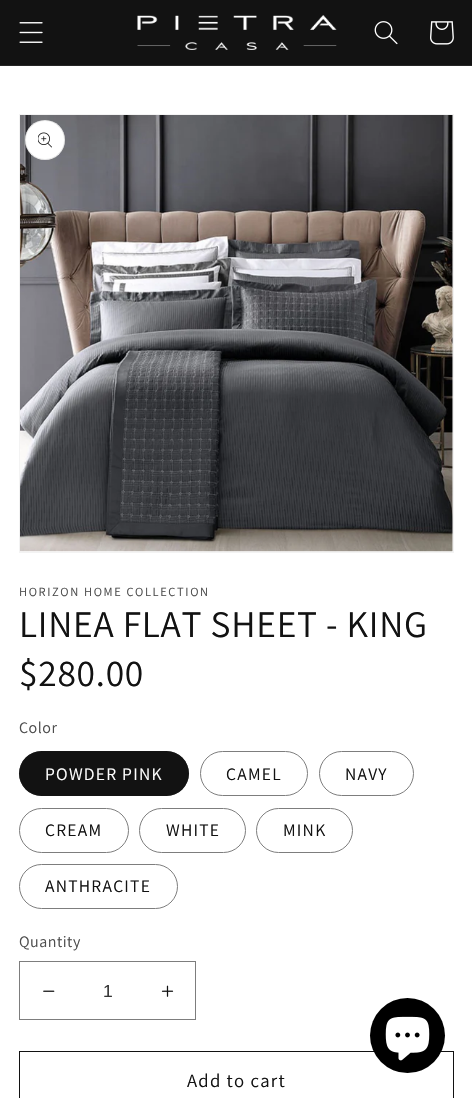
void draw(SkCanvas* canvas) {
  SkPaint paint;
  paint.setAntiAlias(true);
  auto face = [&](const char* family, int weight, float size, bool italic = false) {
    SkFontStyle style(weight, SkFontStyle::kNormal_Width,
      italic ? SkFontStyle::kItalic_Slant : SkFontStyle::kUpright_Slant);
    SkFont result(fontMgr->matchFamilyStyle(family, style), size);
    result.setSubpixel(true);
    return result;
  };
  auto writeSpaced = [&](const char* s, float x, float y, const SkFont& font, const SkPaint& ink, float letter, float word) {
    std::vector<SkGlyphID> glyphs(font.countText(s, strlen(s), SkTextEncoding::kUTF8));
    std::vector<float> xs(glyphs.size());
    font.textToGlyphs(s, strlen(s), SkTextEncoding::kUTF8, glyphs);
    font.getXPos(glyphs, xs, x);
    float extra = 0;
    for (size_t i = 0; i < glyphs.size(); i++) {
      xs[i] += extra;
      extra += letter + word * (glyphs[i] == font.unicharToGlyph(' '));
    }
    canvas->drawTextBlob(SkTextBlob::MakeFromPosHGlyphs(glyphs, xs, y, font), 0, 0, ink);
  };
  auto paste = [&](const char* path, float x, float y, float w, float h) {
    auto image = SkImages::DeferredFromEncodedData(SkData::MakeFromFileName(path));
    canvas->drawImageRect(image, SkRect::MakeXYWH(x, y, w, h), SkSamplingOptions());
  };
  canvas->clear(0xffffffff);
  paint.setColor(0xff121212);
  canvas->drawRect(SkRect::MakeXYWH(0, 0, 472, 65), paint);
  paint.setColor(0xff252525);
  canvas->drawRect(SkRect::MakeXYWH(0, 65, 472, 1), paint);
  paste("img/1.png", 19, 22, 24, 21);
  paste("img/2.png", 137, 15, 200, 35);
  paste("img/3.png", 374, 21, 24, 24);
  paste("img/4.png", 430, 21, 24, 24);
  paint.setStroke(true);
  paint.setStrokeWidth(1);
  paint.setColor(0xfff3f3f3);
  canvas->drawRect(SkRect::MakeXYWH(19.5f, 114.5f, 434, 438), paint);
  paste("img/5.png", 20, 115, 433, 437);
  paint.setStroke(false);
  paint.setColor(0xffffffff);
  canvas->drawCircle(45, 140, 20, paint);
  paint.setStroke(true);
  paint.setColor(0x1a121212);
  canvas->drawCircle(45, 140, 19.5f, paint);
  paste("img/6.png", 38, 132, 14, 16);
  paint.setStroke(false);
  paint.setColor(0xff121212);
  canvas->drawRoundRect(SkRect::MakeXYWH(19, 751, 170, 45), 22.5f, 22.5f, paint);
  paint.setStroke(true);
  paint.setColor(0x8c121212);
  canvas->drawRoundRect(SkRect::MakeXYWH(19.5f, 751.5f, 169, 44), 22, 22, paint);
  paint.setColor(0xff7d7d7d);
  canvas->drawRoundRect(SkRect::MakeXYWH(200.5f, 751.5f, 107, 44), 22, 22, paint);
  canvas->drawRoundRect(SkRect::MakeXYWH(319.5f, 751.5f, 94, 44), 22, 22, paint);
  canvas->drawRoundRect(SkRect::MakeXYWH(19.5f, 808.5f, 109, 44), 22, 22, paint);
  canvas->drawRoundRect(SkRect::MakeXYWH(139.5f, 808.5f, 106, 44), 22, 22, paint);
  canvas->drawRoundRect(SkRect::MakeXYWH(256.5f, 808.5f, 96, 44), 22, 22, paint);
  canvas->drawRoundRect(SkRect::MakeXYWH(19.5f, 864.5f, 158, 44), 22, 22, paint);
  paste("img/7.png", 43, 990, 12, 2);
  paste("img/8.png", 161, 985, 13, 12);
  canvas->drawRect(SkRect::MakeXYWH(19.5f, 961.5f, 176, 58), paint);
  paint.setColor(0xff121212);
  canvas->drawRect(SkRect::MakeXYWH(19.5f, 1051.5f, 434, 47), paint);
  paint.setStroke(false);
  paint.setColor(0xff000000);
  canvas->drawCircle(407.5f, 1035.5f, 37.5f, paint);
  paste("img/9.png", 385, 1016, 45, 45);
  auto f0 = face("Assistant", 400, 12.5f);
  paint.setColor(0xff4d4d4d);
  writeSpaced("HORIZON HOME COLLECTION", 19, 596, f0, paint, 1.6f, 0);
  auto f1 = face("Assistant", 400, 37.5f);
  paint.setColor(0xff121212);
  writeSpaced("LINEA FLAT SHEET - KING", 19, 637, f1, paint, 0.75f, 0);
  writeSpaced("$280.00", 19, 686, f1, paint, 0.75f, 0);
  auto f2 = face("Assistant", 400, 16);
  paint.setColor(0xff4d4d4d);
  writeSpaced("Color", 19, 733, f2, paint, 0.5f, 0);
  auto f3 = face("Assistant", 400, 17.5f);
  paint.setColor(0xffffffff);
  writeSpaced("POWDER PINK", 45, 780, f3, paint, 1.25f, 0);
  paint.setColor(0xff121212);
  {
    const struct { const char* s; float x, y; } items[] = {
      {"CAMEL", 226, 780},
      {"NAVY", 345, 780},
      {"CREAM", 45, 836},
      {"WHITE", 166, 836},
      {"MINK", 283, 836},
      {"ANTHRACITE", 45, 892},
    };
    for (auto [s, x, y] : items) {
      writeSpaced(s, x, y, f3, paint, 1.25f, 0);
    }
  }
  paint.setColor(0xff4d4d4d);
  writeSpaced("Quantity", 19, 947, f2, paint, 0.5f, 0);
  auto f4 = face("Liberation Sans", 400, 17.5f);
  paint.setColor(0xff363636);
  canvas->drawString("1", 103, 997, f4, paint);
  auto f5 = face("Assistant", 400, 18.75f);
  paint.setColor(0xff121212);
  writeSpaced("Add to cart", 187, 1087, f5, paint, 1.25f, 0);
}
